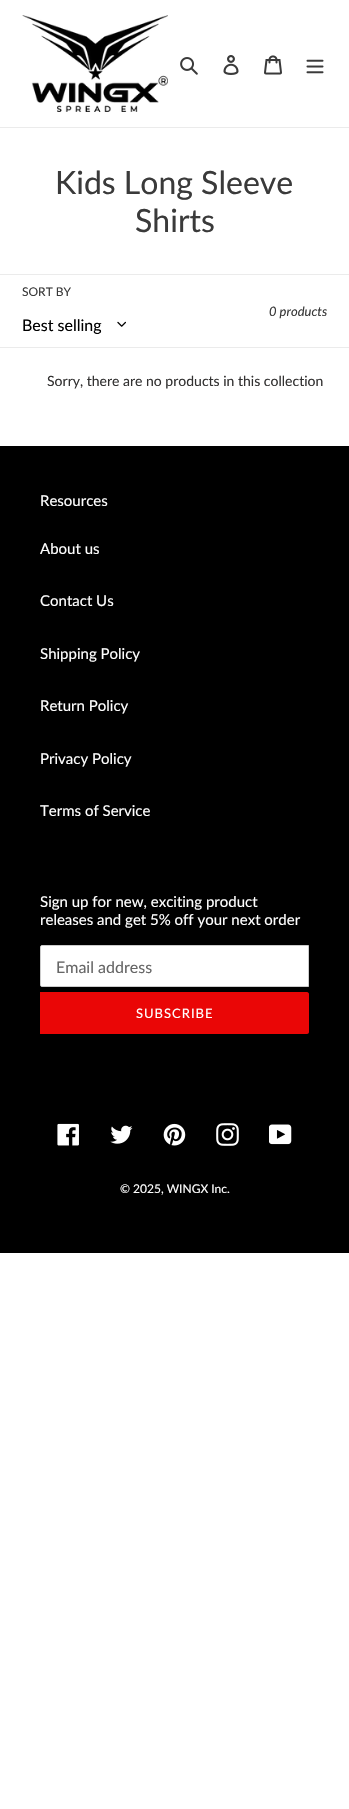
void draw(SkCanvas* canvas) {
  SkPaint paint;
  paint.setAntiAlias(true);
  auto face = [&](const char* family, int weight, float size, bool italic = false) {
    SkFontStyle style(weight, SkFontStyle::kNormal_Width,
      italic ? SkFontStyle::kItalic_Slant : SkFontStyle::kUpright_Slant);
    SkFont result(fontMgr->matchFamilyStyle(family, style), size);
    result.setSubpixel(true);
    return result;
  };
  auto writeSpaced = [&](const char* s, float x, float y, const SkFont& font, const SkPaint& ink, float letter, float word) {
    std::vector<SkGlyphID> glyphs(font.countText(s, strlen(s), SkTextEncoding::kUTF8));
    std::vector<float> xs(glyphs.size());
    font.textToGlyphs(s, strlen(s), SkTextEncoding::kUTF8, glyphs);
    font.getXPos(glyphs, xs, x);
    float extra = 0;
    for (size_t i = 0; i < glyphs.size(); i++) {
      xs[i] += extra;
      extra += letter + word * (glyphs[i] == font.unicharToGlyph(' '));
    }
    canvas->drawTextBlob(SkTextBlob::MakeFromPosHGlyphs(glyphs, xs, y, font), 0, 0, ink);
  };
  auto paste = [&](const char* path, float x, float y, float w, float h) {
    auto image = SkImages::DeferredFromEncodedData(SkData::MakeFromFileName(path));
    canvas->drawImageRect(image, SkRect::MakeXYWH(x, y, w, h), SkSamplingOptions());
  };
  auto shape = [&](const char* data, bool evenOdd = false) {
    SkPath result = *SkParsePath::FromSVGString(data);
    if (evenOdd) result.setFillType(SkPathFillType::kEvenOdd);
    return result;
  };
  canvas->clear(0xffffffff);
  paint.setColor(0xffebebeb);
  canvas->drawRect(SkRect::MakeXYWH(0, 127, 349, 1), paint);
  paste("img/1.png", 22, 15, 146, 97);
  paste("img/2.png", 180, 57, 18, 18);
  paste("img/3.png", 223, 55, 16, 20);
  paste("img/4.png", 264, 55, 18, 20);
  paste("img/5.png", 306, 59, 18, 15);
  canvas->drawRect(SkRect::MakeXYWH(0, 274, 349, 1), paint);
  canvas->drawRect(SkRect::MakeXYWH(0, 347, 349, 1), paint);
  paste("img/6.png", 117, 321, 9, 6);
  paint.setColor(0xff000000);
  canvas->drawRect(SkRect::MakeXYWH(0, 446, 349, 807), paint);
  paint.setColor(0xffffffff);
  canvas->drawPath(shape("M42 945.5H308.5V986.5H42C41 986.5 40.5 986 40.5 985V947C40.5 946 41 945.5 42 945.5Z"), paint);
  paint.setStroke(true);
  paint.setStrokeWidth(1);
  paint.setColor(0xffcccccc);
  canvas->drawPath(shape("M42 945.5H308.5V986.5H42C41 986.5 40.5 986 40.5 985V947C40.5 946 41 945.5 42 945.5Z"), paint);
  paint.setStroke(false);
  paint.setColor(0xffea0606);
  canvas->drawPath(shape("M40 992H307C308 992 309 993 309 994V1032C309 1033 308 1034 307 1034H40Z"), paint);
  paste("img/7.png", 57, 1123, 22, 23);
  paste("img/8.png", 110, 1125, 23, 19);
  paste("img/9.png", 163, 1123, 23, 23);
  paste("img/10.png", 216, 1123, 23, 23);
  paste("img/11.png", 269, 1124, 23, 21);
  auto f0 = face("Lato", 400, 32);
  paint.setColor(0xff3a3a3a);
  canvas->drawString("Kids Long Sleeve", 55, 194, f0, paint);
  canvas->drawString("Shirts", 135, 232, f0, paint);
  auto f1 = face("Lato", 400, 12);
  canvas->drawString("SORT BY", 22, 296, f1, paint);
  auto f2 = face("Lato", 400, 16);
  paint.setColor(0xff000000);
  canvas->drawString("Best selling", 22, 331, f2, paint);
  auto f3 = face("Lato", 400, 13, true);
  paint.setColor(0xff3a3a3a);
  canvas->drawString("0 products", 269, 316, f3, paint);
  auto f4 = face("Lato", 400, 14);
  paint.setColor(0xff333232);
  canvas->drawString("Sorry, there are no products in this collection", 47, 386, f4, paint);
  auto f5 = face("Lato", 400, 15);
  paint.setColor(0xffffffff);
  {
    const struct { const char* s; float x, y; } items[] = {
      {"Resources", 40, 506},
      {"About us", 40, 554},
      {"Contact Us", 40, 606},
      {"Shipping Policy", 40, 659},
      {"Return Policy", 40, 711},
      {"Privacy Policy", 40, 764},
      {"Terms of Service", 40, 816},
      {"Sign up for new, exciting product", 40, 907},
      {"releases and get 5% off your next order", 40, 925},
    };
    for (auto [s, x, y] : items) {
      canvas->drawString(s, x, y, f5, paint);
    }
  }
  paint.setColor(0xff666666);
  canvas->drawString("Email address", 56, 973, f2, paint);
  auto f6 = face("Lato", 400, 13);
  paint.setColor(0xffffffff);
  writeSpaced("SUBSCRIBE", 136, 1018, f6, paint, 1, 0);
  canvas->drawString("© 2025, WINGX Inc.", 120, 1193, f1, paint);
}
